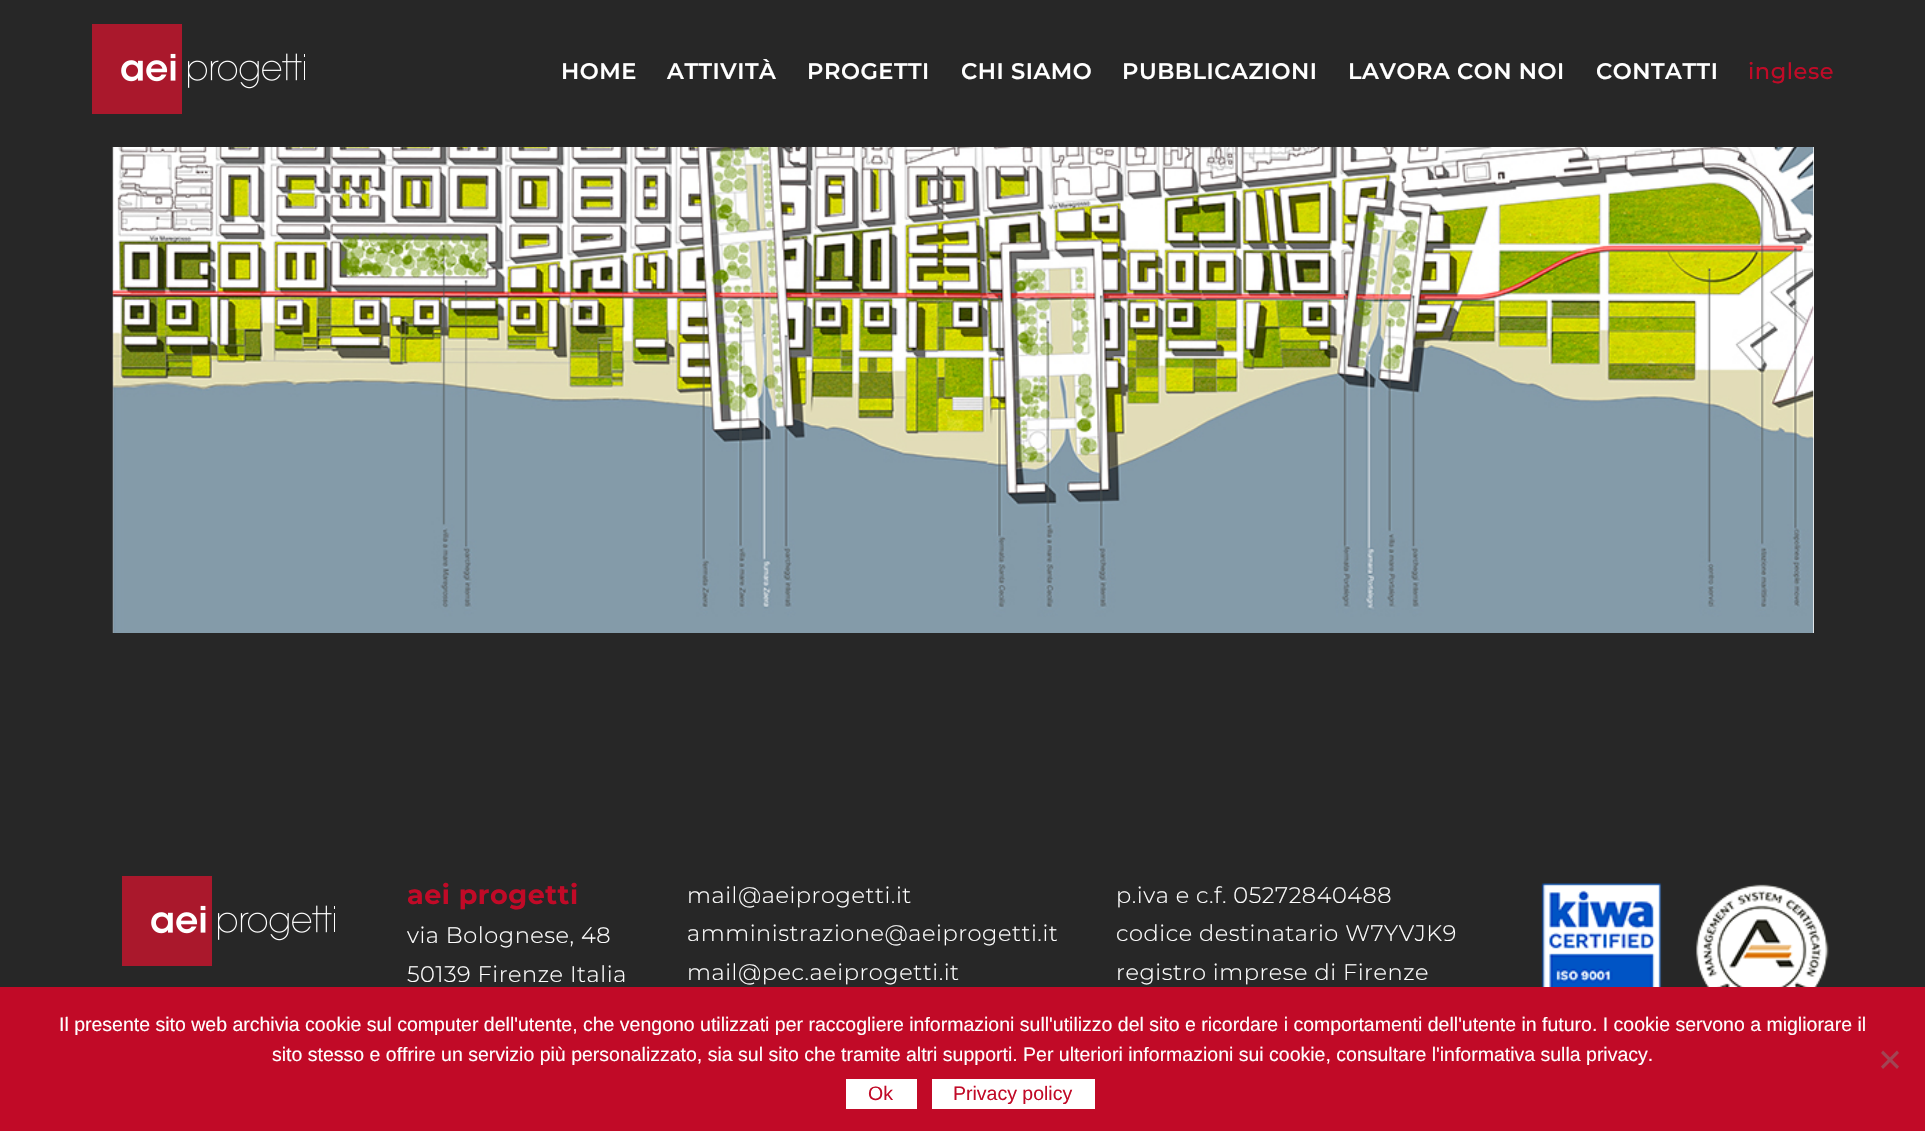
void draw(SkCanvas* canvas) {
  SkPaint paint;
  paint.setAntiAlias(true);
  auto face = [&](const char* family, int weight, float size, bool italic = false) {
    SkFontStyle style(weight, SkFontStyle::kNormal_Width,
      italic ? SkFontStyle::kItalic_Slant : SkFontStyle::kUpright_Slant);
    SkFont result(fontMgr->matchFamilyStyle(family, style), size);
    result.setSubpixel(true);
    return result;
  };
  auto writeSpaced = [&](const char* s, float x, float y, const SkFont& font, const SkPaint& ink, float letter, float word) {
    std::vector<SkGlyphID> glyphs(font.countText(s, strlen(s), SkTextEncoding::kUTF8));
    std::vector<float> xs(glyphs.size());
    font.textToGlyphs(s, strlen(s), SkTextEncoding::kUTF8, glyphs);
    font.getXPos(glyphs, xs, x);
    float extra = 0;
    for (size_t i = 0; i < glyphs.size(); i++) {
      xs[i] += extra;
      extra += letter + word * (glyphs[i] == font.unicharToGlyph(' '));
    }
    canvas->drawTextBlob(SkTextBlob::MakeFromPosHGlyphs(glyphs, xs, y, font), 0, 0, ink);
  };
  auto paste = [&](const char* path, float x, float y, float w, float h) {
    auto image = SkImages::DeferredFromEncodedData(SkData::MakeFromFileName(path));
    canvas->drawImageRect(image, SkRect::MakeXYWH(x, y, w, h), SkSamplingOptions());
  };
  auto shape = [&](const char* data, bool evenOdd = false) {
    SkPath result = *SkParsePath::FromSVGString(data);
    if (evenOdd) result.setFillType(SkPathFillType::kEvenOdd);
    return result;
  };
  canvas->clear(0xff272727);
  paste("img/1.png", 92, 24, 213, 90);
  paint.setColor(0xffffffff);
  canvas->drawRect(SkRect::MakeXYWH(1813, 147, 1, 486), paint);
  paste("img/2.png", 112, 147, 1702, 486);
  paste("img/1.png", 122, 876, 213, 90);
  paste("img/3.png", 1541, 883, 288, 104);
  paint.setColor(0xffc10a27);
  canvas->drawRect(SkRect::MakeXYWH(0, 987, 1925, 144), paint);
  paint.setColor(0xffa14554);
  canvas->drawPath(shape("M1897 1050.5L1899 1053L1883 1069L1881 1066.5Z"), paint);
  canvas->drawPath(shape("M1881 1053L1883 1050.5L1899 1066.5L1897 1069Z"), paint);
  paint.setColor(0xffffffff);
  canvas->drawRect(SkRect::MakeXYWH(846, 1079, 71, 30), paint);
  canvas->drawRect(SkRect::MakeXYWH(932, 1079, 163, 30), paint);
  auto f0 = face("Montserrat", 600, 22.5f);
  {
    const struct { const char* s; float x, y; } items[] = {
      {"HOME", 561, 79},
      {"ATTIVITÀ", 667, 79},
      {"PROGETTI", 807, 79},
      {"CHI SIAMO", 961, 79},
      {"PUBBLICAZIONI", 1122, 79},
      {"LAVORA CON NOI", 1348, 79},
      {"CONTATTI", 1596, 79},
    };
    for (auto [s, x, y] : items) {
      writeSpaced(s, x, y, f0, paint, 0.55f, 0);
    }
  }
  auto f1 = face("Montserrat", 500, 22.5f);
  paint.setColor(0xffc10a27);
  writeSpaced("inglese", 1748, 79, f1, paint, 0.55f, 0);
  auto f2 = face("Montserrat", 700, 27);
  writeSpaced("aei progetti", 407, 904, f2, paint, 0.55f, 0);
  auto f3 = face("Montserrat", 300, 22.5f);
  paint.setColor(0xffffffff);
  {
    const struct { const char* s; float x, y; } items[] = {
      {"via Bolognese, 48", 407, 943},
      {"50139 Firenze Italia", 407, 982},
      {"mail@aeiprogetti.it", 687, 903},
      {"amministrazione@aeiprogetti.it", 687, 941},
      {"mail@pec.aeiprogetti.it", 687, 980},
      {"p.iva e c.f. 05272840488", 1116, 903},
      {"codice destinatario W7YVJK9", 1116, 941},
      {"registro imprese di Firenze", 1116, 980},
    };
    for (auto [s, x, y] : items) {
      writeSpaced(s, x, y, f3, paint, 0.55f, 0);
    }
  }
  auto f4 = face("Liberation Sans", 400, 19.5f);
  canvas->drawString("Il presente sito web archivia cookie sul computer dell'utente, che vengono utilizzati per raccogliere informazioni sull'utilizzo del sito e ricordare i comportamenti dell'utente in futuro. I cookie servono a migliorare il", 59, 1031, f4, paint);
  canvas->drawString("sito stesso e offrire un servizio più personalizzato, sia sul sito che tramite altri supporti. Per ulteriori informazioni sui cookie, consultare l'informativa sulla privacy.", 272, 1061, f4, paint);
  paint.setColor(0xffc10a27);
  canvas->drawString("Ok", 868, 1100, f4, paint);
  canvas->drawString("Privacy policy", 953, 1100, f4, paint);
}
